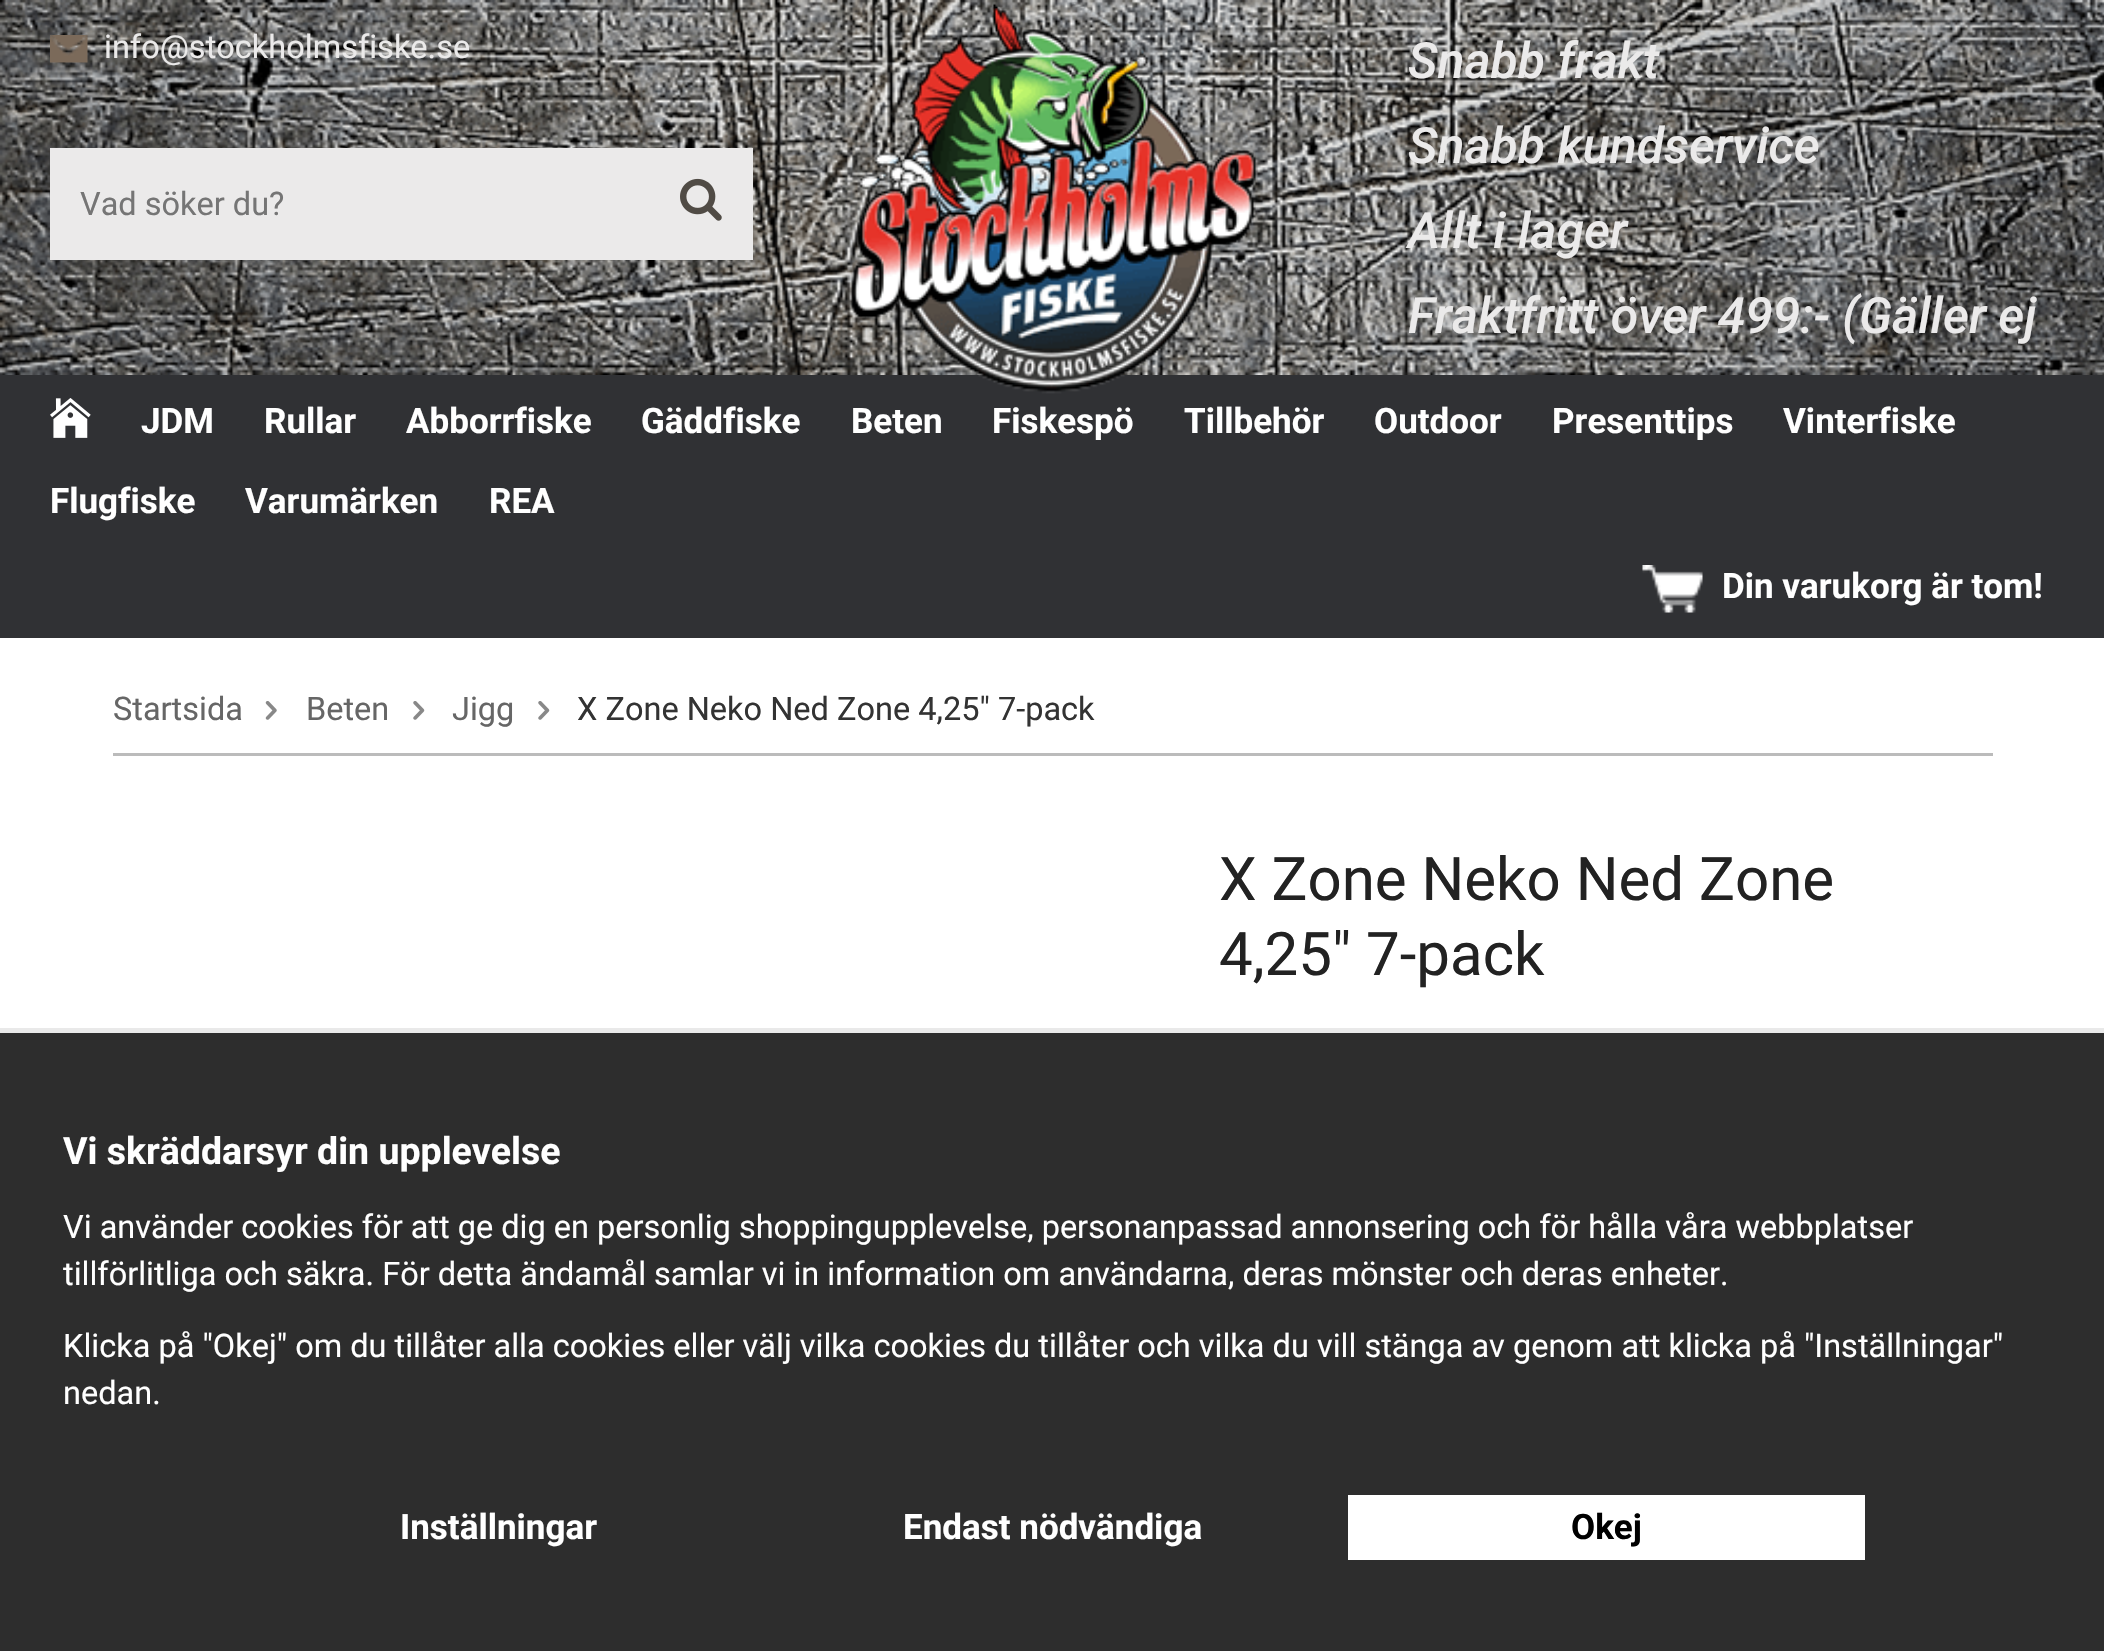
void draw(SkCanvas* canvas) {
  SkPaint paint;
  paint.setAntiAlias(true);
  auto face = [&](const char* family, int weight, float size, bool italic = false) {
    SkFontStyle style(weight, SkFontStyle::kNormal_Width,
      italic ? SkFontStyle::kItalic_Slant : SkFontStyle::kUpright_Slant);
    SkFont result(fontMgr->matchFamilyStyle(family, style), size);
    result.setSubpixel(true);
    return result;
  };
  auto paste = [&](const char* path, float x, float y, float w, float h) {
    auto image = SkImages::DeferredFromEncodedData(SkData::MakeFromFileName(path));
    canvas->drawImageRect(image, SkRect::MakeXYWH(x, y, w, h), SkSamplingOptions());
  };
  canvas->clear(0xffffffff);
  paste("img/1.png", 0, 0, 2104, 375);
  paste("img/2.png", 50, 35, 38, 28);
  paint.setColor(0xffebeaea);
  canvas->drawRect(SkRect::MakeXYWH(50, 148, 703, 112), paint);
  paste("img/3.png", 680, 178, 42, 43);
  paint.setColor(0xff303134);
  canvas->drawRect(SkRect::MakeXYWH(0, 375, 2104, 263), paint);
  paste("img/4.png", 849, 0, 409, 394);
  paste("img/5.png", 50, 398, 41, 40);
  paste("img/6.png", 1642, 565, 61, 48);
  paint.setColor(0xffbbbbbb);
  canvas->drawRect(SkRect::MakeXYWH(113, 753, 1880, 3), paint);
  paste("img/7.png", 265, 701, 12, 19);
  paste("img/8.png", 413, 701, 12, 19);
  paste("img/8.png", 538, 701, 12, 19);
  {
    const struct { float x, y, w, h; SkColor color; } items[] = {
      {0, 1033, 2104, 618, 0xff2d2d2d},
      {0, 1028, 2104, 5, 0xffe9e9e9},
      {1348, 1495, 517, 65, 0xffffffff},
    };
    for (auto [x, y, w, h, color] : items) {
      paint.setColor(color);
      canvas->drawRect(SkRect::MakeXYWH(x, y, w, h), paint);
    }
  }
  auto f0 = face("Roboto", 400, 32.5f);
  paint.setColor(0xffebeaea);
  canvas->drawString("info@stockholmsfiske.se", 104, 58, f0, paint);
  paint.setColor(0xff757575);
  canvas->drawString("Vad söker du?", 80, 215, f0, paint);
  auto f1 = face("Roboto", 500, 50, true);
  paint.setColor(0xffebeaea);
  {
    const struct { const char* s; float x, y; } items[] = {
      {"Snabb frakt", 1408, 78},
      {"Snabb kundservice", 1408, 163},
      {"Allt i lager", 1408, 248},
      {"Fraktfritt över 499:- (Gäller ej", 1408, 333},
    };
    for (auto [s, x, y] : items) {
      canvas->drawString(s, x, y, f1, paint);
    }
  }
  auto f2 = face("Roboto", 700, 35);
  paint.setColor(0xffffffff);
  {
    const struct { const char* s; float x, y; } items[] = {
      {"JDM", 141, 433},
      {"Rullar", 264, 433},
      {"Abborrfiske", 406, 433},
      {"Gäddfiske", 641, 433},
      {"Beten", 851, 433},
      {"Fiskespö", 992, 433},
      {"Tillbehör", 1184, 433},
      {"Outdoor", 1374, 433},
      {"Presenttips", 1552, 433},
      {"Vinterfiske", 1783, 433},
      {"Flugfiske", 50, 513},
      {"Varumärken", 245, 513},
      {"REA", 489, 513},
      {"Din varukorg är tom!", 1722, 598},
    };
    for (auto [s, x, y] : items) {
      canvas->drawString(s, x, y, f2, paint);
    }
  }
  paint.setColor(0xff666666);
  {
    const struct { const char* s; float x, y; } items[] = {
      {"Startsida", 113, 720},
      {"Beten", 306, 720},
      {"Jigg", 452, 720},
    };
    for (auto [s, x, y] : items) {
      canvas->drawString(s, x, y, f0, paint);
    }
  }
  paint.setColor(0xff333333);
  canvas->drawString("X Zone Neko Ned Zone 4,25\" 7-pack", 577, 720, f0, paint);
  auto f3 = face("Roboto", 400, 60);
  paint.setColor(0xff222222);
  canvas->drawString("X Zone Neko Ned Zone", 1219, 900, f3, paint);
  canvas->drawString("4,25\" 7-pack", 1219, 975, f3, paint);
  auto f4 = face("Roboto", 700, 37.5f);
  paint.setColor(0xffffffff);
  canvas->drawString("Vi skräddarsyr din upplevelse", 63, 1164, f4, paint);
  {
    const struct { const char* s; float x, y; } items[] = {
      {"Vi använder cookies för att ge dig en personlig shoppingupplevelse, personanpassad annonsering och för hålla våra webbplatser", 63, 1238},
      {"tillförlitliga och säkra. För detta ändamål samlar vi in information om användarna, deras mönster och deras enheter.", 63, 1285},
      {"Klicka på \"Okej\" om du tillåter alla cookies eller välj vilka cookies du tillåter och vilka du vill stänga av genom att klicka på \"Inställningar\"", 63, 1357},
      {"nedan.", 63, 1404},
    };
    for (auto [s, x, y] : items) {
      canvas->drawString(s, x, y, f0, paint);
    }
  }
  canvas->drawString("Inställningar", 400, 1539, f2, paint);
  canvas->drawString("Endast nödvändiga", 903, 1539, f2, paint);
  paint.setColor(0xff000000);
  canvas->drawString("Okej", 1571, 1539, f2, paint);
}
